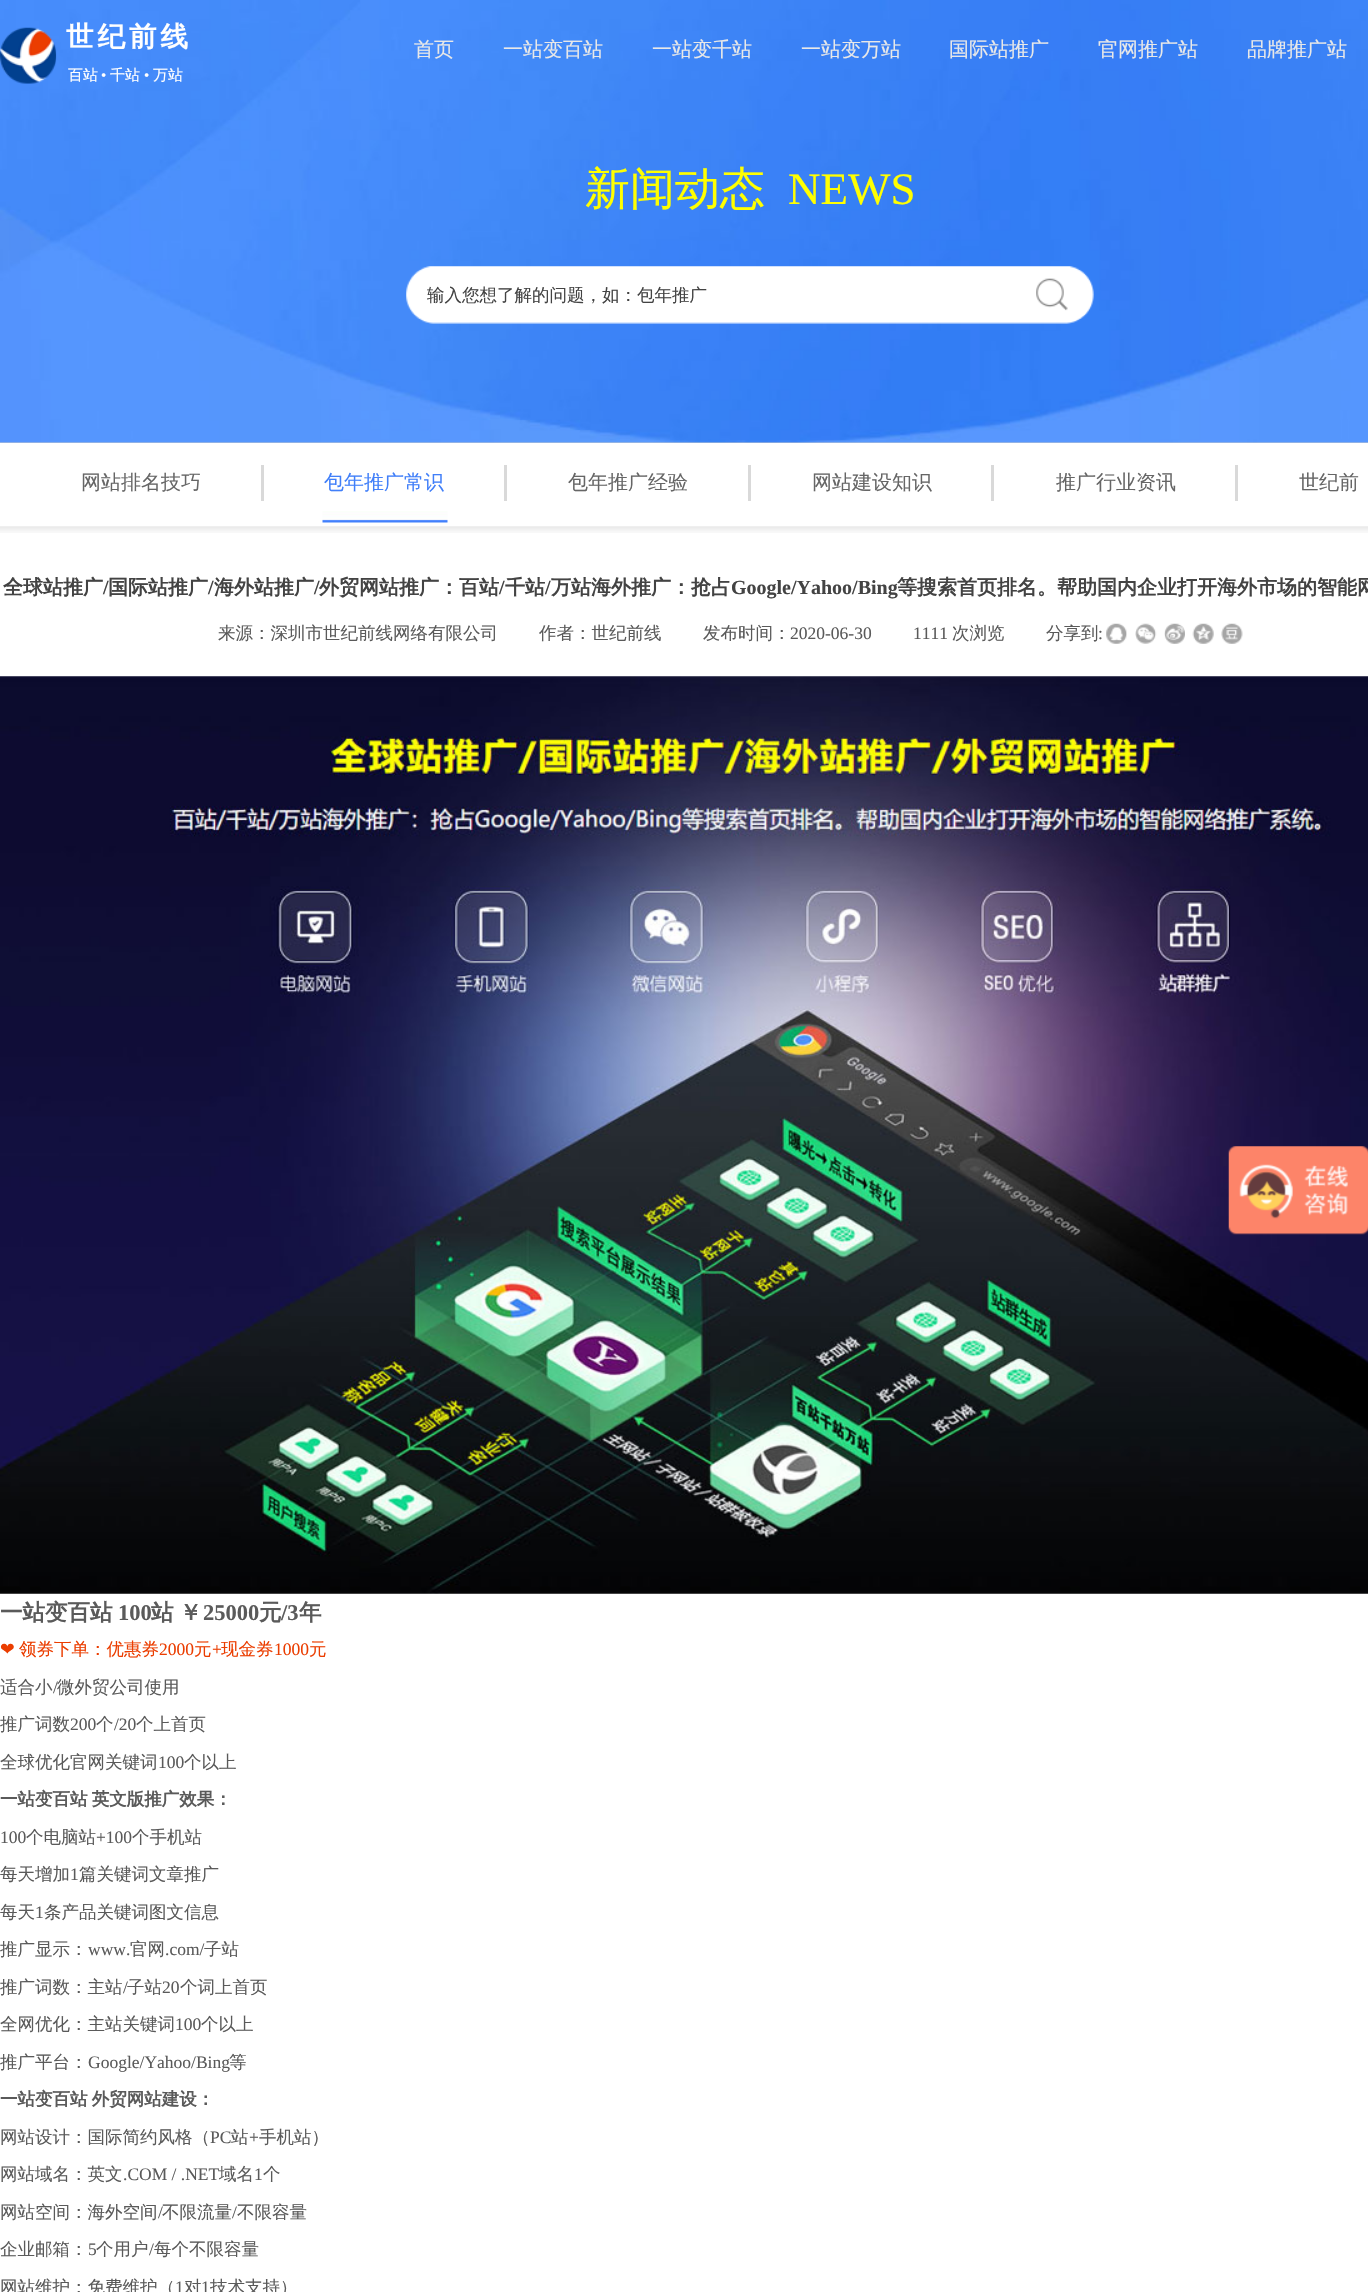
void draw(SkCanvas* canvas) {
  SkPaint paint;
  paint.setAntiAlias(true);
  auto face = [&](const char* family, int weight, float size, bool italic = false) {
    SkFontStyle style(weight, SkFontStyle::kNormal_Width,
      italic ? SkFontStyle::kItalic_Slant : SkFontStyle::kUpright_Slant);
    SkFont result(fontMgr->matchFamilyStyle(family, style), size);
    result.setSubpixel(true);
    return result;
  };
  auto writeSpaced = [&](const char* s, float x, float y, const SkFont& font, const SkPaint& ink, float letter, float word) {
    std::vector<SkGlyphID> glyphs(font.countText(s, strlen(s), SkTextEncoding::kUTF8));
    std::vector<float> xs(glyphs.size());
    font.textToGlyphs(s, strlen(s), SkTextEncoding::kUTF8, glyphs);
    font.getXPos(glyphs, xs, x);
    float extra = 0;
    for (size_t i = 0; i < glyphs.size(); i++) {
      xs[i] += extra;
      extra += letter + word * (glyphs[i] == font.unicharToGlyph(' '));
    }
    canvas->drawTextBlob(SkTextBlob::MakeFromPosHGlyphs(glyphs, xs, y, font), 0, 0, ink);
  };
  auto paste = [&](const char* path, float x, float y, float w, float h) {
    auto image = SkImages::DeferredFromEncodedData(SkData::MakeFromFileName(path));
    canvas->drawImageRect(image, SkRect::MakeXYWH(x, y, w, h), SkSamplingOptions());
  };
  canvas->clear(0xffffffff);
  paint.setColor(0xffcccccc);
  canvas->drawRect(SkRect::MakeXYWH(0, 442, 1368, 1), paint);
  paste("img/1.png", 0, 0, 1368, 443);
  paste("img/2.png", 0, 27, 57, 57);
  paste("img/3.png", 406, 266, 688, 58);
  paste("img/4.png", 1036, 278, 32, 33);
  {
    const struct { float x, y, w, h; SkColor color; } items[] = {
      {261, 465, 3, 36, 0xffd9d9d9},
      {504, 465, 3, 36, 0xffd9d9d9},
      {748, 465, 3, 36, 0xffd9d9d9},
      {991, 465, 3, 36, 0xffd9d9d9},
      {1235, 465, 3, 36, 0xffd9d9d9},
    };
    for (auto [x, y, w, h, color] : items) {
      paint.setColor(color);
      canvas->drawRect(SkRect::MakeXYWH(x, y, w, h), paint);
    }
  }
  paste("img/5.png", 322, 511, 126, 12);
  paste("img/6.png", 0, 526, 1368, 7);
  paste("img/7.png", 1106, 623, 21, 21);
  paste("img/8.png", 1135, 623, 22, 21);
  paste("img/9.png", 1164, 623, 21, 21);
  paste("img/10.png", 1192, 623, 22, 21);
  paste("img/11.png", 1221, 623, 22, 21);
  paste("img/12.png", 0, 676, 1368, 918);
  paste("img/13.png", 1228, 1146, 140, 89);
  auto f0 = face("WenQuanYi Zen Hei", 700, 27.5f);
  paint.setColor(0xffffffff);
  writeSpaced("世纪前线", 66, 46, f0, paint, 4, 0);
  auto f1 = face("WenQuanYi Zen Hei", 500, 20);
  paint.setColor(0xffe8e8e8);
  {
    const struct { const char* s; float x, y; } items[] = {
      {"首页", 414, 56},
      {"一站变百站", 503, 56},
      {"一站变千站", 652, 56},
      {"一站变万站", 801, 56},
      {"国际站推广", 949, 56},
      {"官网推广站", 1098, 56},
      {"品牌推广站", 1247, 56},
    };
    for (auto [s, x, y] : items) {
      canvas->drawString(s, x, y, f1, paint);
    }
  }
  auto f2 = face("WenQuanYi Zen Hei", 500, 15);
  paint.setColor(0xffffffff);
  canvas->drawString("百站", 68, 80, f2, paint);
  auto f3 = face("Liberation Serif", 400, 15);
  canvas->drawString("•", 101, 80, f3, paint);
  canvas->drawString("千站", 110, 80, f2, paint);
  canvas->drawString("•", 144, 80, f3, paint);
  canvas->drawString("万站", 153, 80, f2, paint);
  auto f4 = face("WenQuanYi Zen Hei", 500, 45);
  paint.setColor(0xffffff00);
  canvas->drawString("新闻动态", 585, 204, f4, paint);
  auto f5 = face("Liberation Serif", 400, 45);
  canvas->drawString("NEWS", 788, 204, f5, paint);
  auto f6 = face("WenQuanYi Zen Hei", 500, 17.5f);
  paint.setColor(0xff434343);
  canvas->drawString("输入您想了解的问题，如：包年推广", 427, 301, f6, paint);
  paint.setColor(0xff666666);
  canvas->drawString("网站排名技巧", 81, 489, f1, paint);
  paint.setColor(0xff417ff9);
  canvas->drawString("包年推广常识", 324, 489, f1, paint);
  paint.setColor(0xff666666);
  {
    const struct { const char* s; float x, y; } items[] = {
      {"包年推广经验", 568, 489},
      {"网站建设知识", 812, 489},
      {"推广行业资讯", 1056, 489},
      {"世纪前", 1299, 489},
    };
    for (auto [s, x, y] : items) {
      canvas->drawString(s, x, y, f1, paint);
    }
  }
  auto f7 = face("WenQuanYi Zen Hei", 700, 20);
  paint.setColor(0xff434343);
  canvas->drawString("全球站推广", 3, 594, f7, paint);
  auto f8 = face("Liberation Serif", 700, 20);
  canvas->drawString("/", 103, 594, f8, paint);
  canvas->drawString("国际站推广", 108, 594, f7, paint);
  canvas->drawString("/", 208, 594, f8, paint);
  canvas->drawString("海外站推广", 214, 594, f7, paint);
  canvas->drawString("/", 314, 594, f8, paint);
  canvas->drawString("外贸网站推广：百站", 319, 594, f7, paint);
  canvas->drawString("/", 499, 594, f8, paint);
  canvas->drawString("千站", 505, 594, f7, paint);
  canvas->drawString("/", 545, 594, f8, paint);
  canvas->drawString("万站海外推广：抢占", 551, 594, f7, paint);
  canvas->drawString("Google/Yahoo/Bing", 731, 594, f8, paint);
  canvas->drawString("等搜索首页排名。帮助国内企业打开海外市场的智能网", 897, 594, f7, paint);
  paint.setColor(0xff5a5a5a);
  {
    const struct { const char* s; float x, y; } items[] = {
      {"来源：深圳市世纪前线网络有限公司", 218, 639},
      {"作者：世纪前线", 539, 639},
      {"发布时间：", 703, 639},
    };
    for (auto [s, x, y] : items) {
      canvas->drawString(s, x, y, f6, paint);
    }
  }
  auto f9 = face("Liberation Serif", 400, 17.5f);
  canvas->drawString("2020-06-30", 790, 639, f9, paint);
  canvas->drawString("1111", 913, 639, f9, paint);
  canvas->drawString("次浏览", 952, 639, f6, paint);
  canvas->drawString("分享到", 1046, 639, f6, paint);
  canvas->drawString(":", 1098, 639, f9, paint);
  auto f10 = face("WenQuanYi Zen Hei", 700, 22.5f);
  canvas->drawString("一站变百站", 0, 1620, f10, paint);
  auto f11 = face("Liberation Serif", 700, 22.5f);
  canvas->drawString("100", 118, 1620, f11, paint);
  writeSpaced("站 ￥", 151, 1620, f10, paint, 0, -1);
  canvas->drawString("25000", 203, 1620, f11, paint);
  canvas->drawString("元", 259, 1620, f10, paint);
  canvas->drawString("/3", 281, 1620, f11, paint);
  canvas->drawString("年", 299, 1620, f10, paint);
  auto f12 = face("DejaVu Sans", 400, 17.5f);
  paint.setColor(0xffeb3d00);
  canvas->drawString("❤", 0, 1655, f12, paint);
  canvas->drawString("领券下单：优惠券", 19, 1655, f6, paint);
  canvas->drawString("2000", 159, 1655, f9, paint);
  canvas->drawString("元", 194, 1655, f6, paint);
  canvas->drawString("+", 212, 1655, f9, paint);
  canvas->drawString("现金券", 221, 1655, f6, paint);
  canvas->drawString("1000", 274, 1655, f9, paint);
  canvas->drawString("元", 309, 1655, f6, paint);
  paint.setColor(0xff5a5a5a);
  canvas->drawString("适合小", 0, 1693, f6, paint);
  canvas->drawString("/", 53, 1693, f9, paint);
  canvas->drawString("微外贸公司使用", 57, 1693, f6, paint);
  canvas->drawString("推广词数", 0, 1730, f6, paint);
  canvas->drawString("200", 70, 1730, f9, paint);
  canvas->drawString("个", 96, 1730, f6, paint);
  canvas->drawString("/20", 114, 1730, f9, paint);
  canvas->drawString("个上首页", 136, 1730, f6, paint);
  canvas->drawString("全球优化官网关键词", 0, 1768, f6, paint);
  canvas->drawString("100", 158, 1768, f9, paint);
  canvas->drawString("个以上", 184, 1768, f6, paint);
  auto f13 = face("WenQuanYi Zen Hei", 700, 17.5f);
  writeSpaced("一站变百站 英文版推广效果：", 0, 1805, f13, paint, 0, -1);
  canvas->drawString("100", 0, 1843, f9, paint);
  canvas->drawString("个电脑站", 26, 1843, f6, paint);
  canvas->drawString("+100", 96, 1843, f9, paint);
  canvas->drawString("个手机站", 132, 1843, f6, paint);
  canvas->drawString("每天增加", 0, 1880, f6, paint);
  canvas->drawString("1", 70, 1880, f9, paint);
  canvas->drawString("篇关键词文章推广", 79, 1880, f6, paint);
  canvas->drawString("每天", 0, 1918, f6, paint);
  canvas->drawString("1", 35, 1918, f9, paint);
  canvas->drawString("条产品关键词图文信息", 44, 1918, f6, paint);
  canvas->drawString("推广显示：", 0, 1955, f6, paint);
  canvas->drawString("www.", 88, 1955, f9, paint);
  canvas->drawString("官网", 130, 1955, f6, paint);
  canvas->drawString(".com/", 165, 1955, f9, paint);
  canvas->drawString("子站", 204, 1955, f6, paint);
  canvas->drawString("推广词数：主站", 0, 1993, f6, paint);
  canvas->drawString("/", 123, 1993, f9, paint);
  canvas->drawString("子站", 127, 1993, f6, paint);
  canvas->drawString("20", 162, 1993, f9, paint);
  canvas->drawString("个词上首页", 180, 1993, f6, paint);
  canvas->drawString("全网优化：主站关键词", 0, 2030, f6, paint);
  canvas->drawString("100", 175, 2030, f9, paint);
  canvas->drawString("个以上", 201, 2030, f6, paint);
  canvas->drawString("推广平台：", 0, 2068, f6, paint);
  canvas->drawString("Google/Yahoo/Bing", 88, 2068, f9, paint);
  canvas->drawString("等", 229, 2068, f6, paint);
  writeSpaced("一站变百站 外贸网站建设：", 0, 2105, f13, paint, 0, -1);
  canvas->drawString("网站设计：国际简约风格（", 0, 2143, f6, paint);
  canvas->drawString("PC", 210, 2143, f9, paint);
  canvas->drawString("站", 231, 2143, f6, paint);
  canvas->drawString("+", 249, 2143, f9, paint);
  canvas->drawString("手机站）", 259, 2143, f6, paint);
  canvas->drawString("网站域名：英文", 0, 2180, f6, paint);
  canvas->drawString(".COM / .NET", 123, 2180, f9, paint);
  canvas->drawString("域名", 219, 2180, f6, paint);
  canvas->drawString("1", 254, 2180, f9, paint);
  canvas->drawString("个", 263, 2180, f6, paint);
  canvas->drawString("网站空间：海外空间", 0, 2218, f6, paint);
  canvas->drawString("/", 158, 2218, f9, paint);
  canvas->drawString("不限流量", 162, 2218, f6, paint);
  canvas->drawString("/", 232, 2218, f9, paint);
  canvas->drawString("不限容量", 237, 2218, f6, paint);
  canvas->drawString("企业邮箱：", 0, 2255, f6, paint);
  canvas->drawString("5", 88, 2255, f9, paint);
  canvas->drawString("个用户", 96, 2255, f6, paint);
  canvas->drawString("/", 149, 2255, f9, paint);
  canvas->drawString("每个不限容量", 154, 2255, f6, paint);
  canvas->drawString("网站维护：免费维护（", 0, 2293, f6, paint);
  canvas->drawString("1", 175, 2293, f9, paint);
  canvas->drawString("对", 184, 2293, f6, paint);
  canvas->drawString("1", 201, 2293, f9, paint);
  canvas->drawString("技术支持）", 210, 2293, f6, paint);
}
